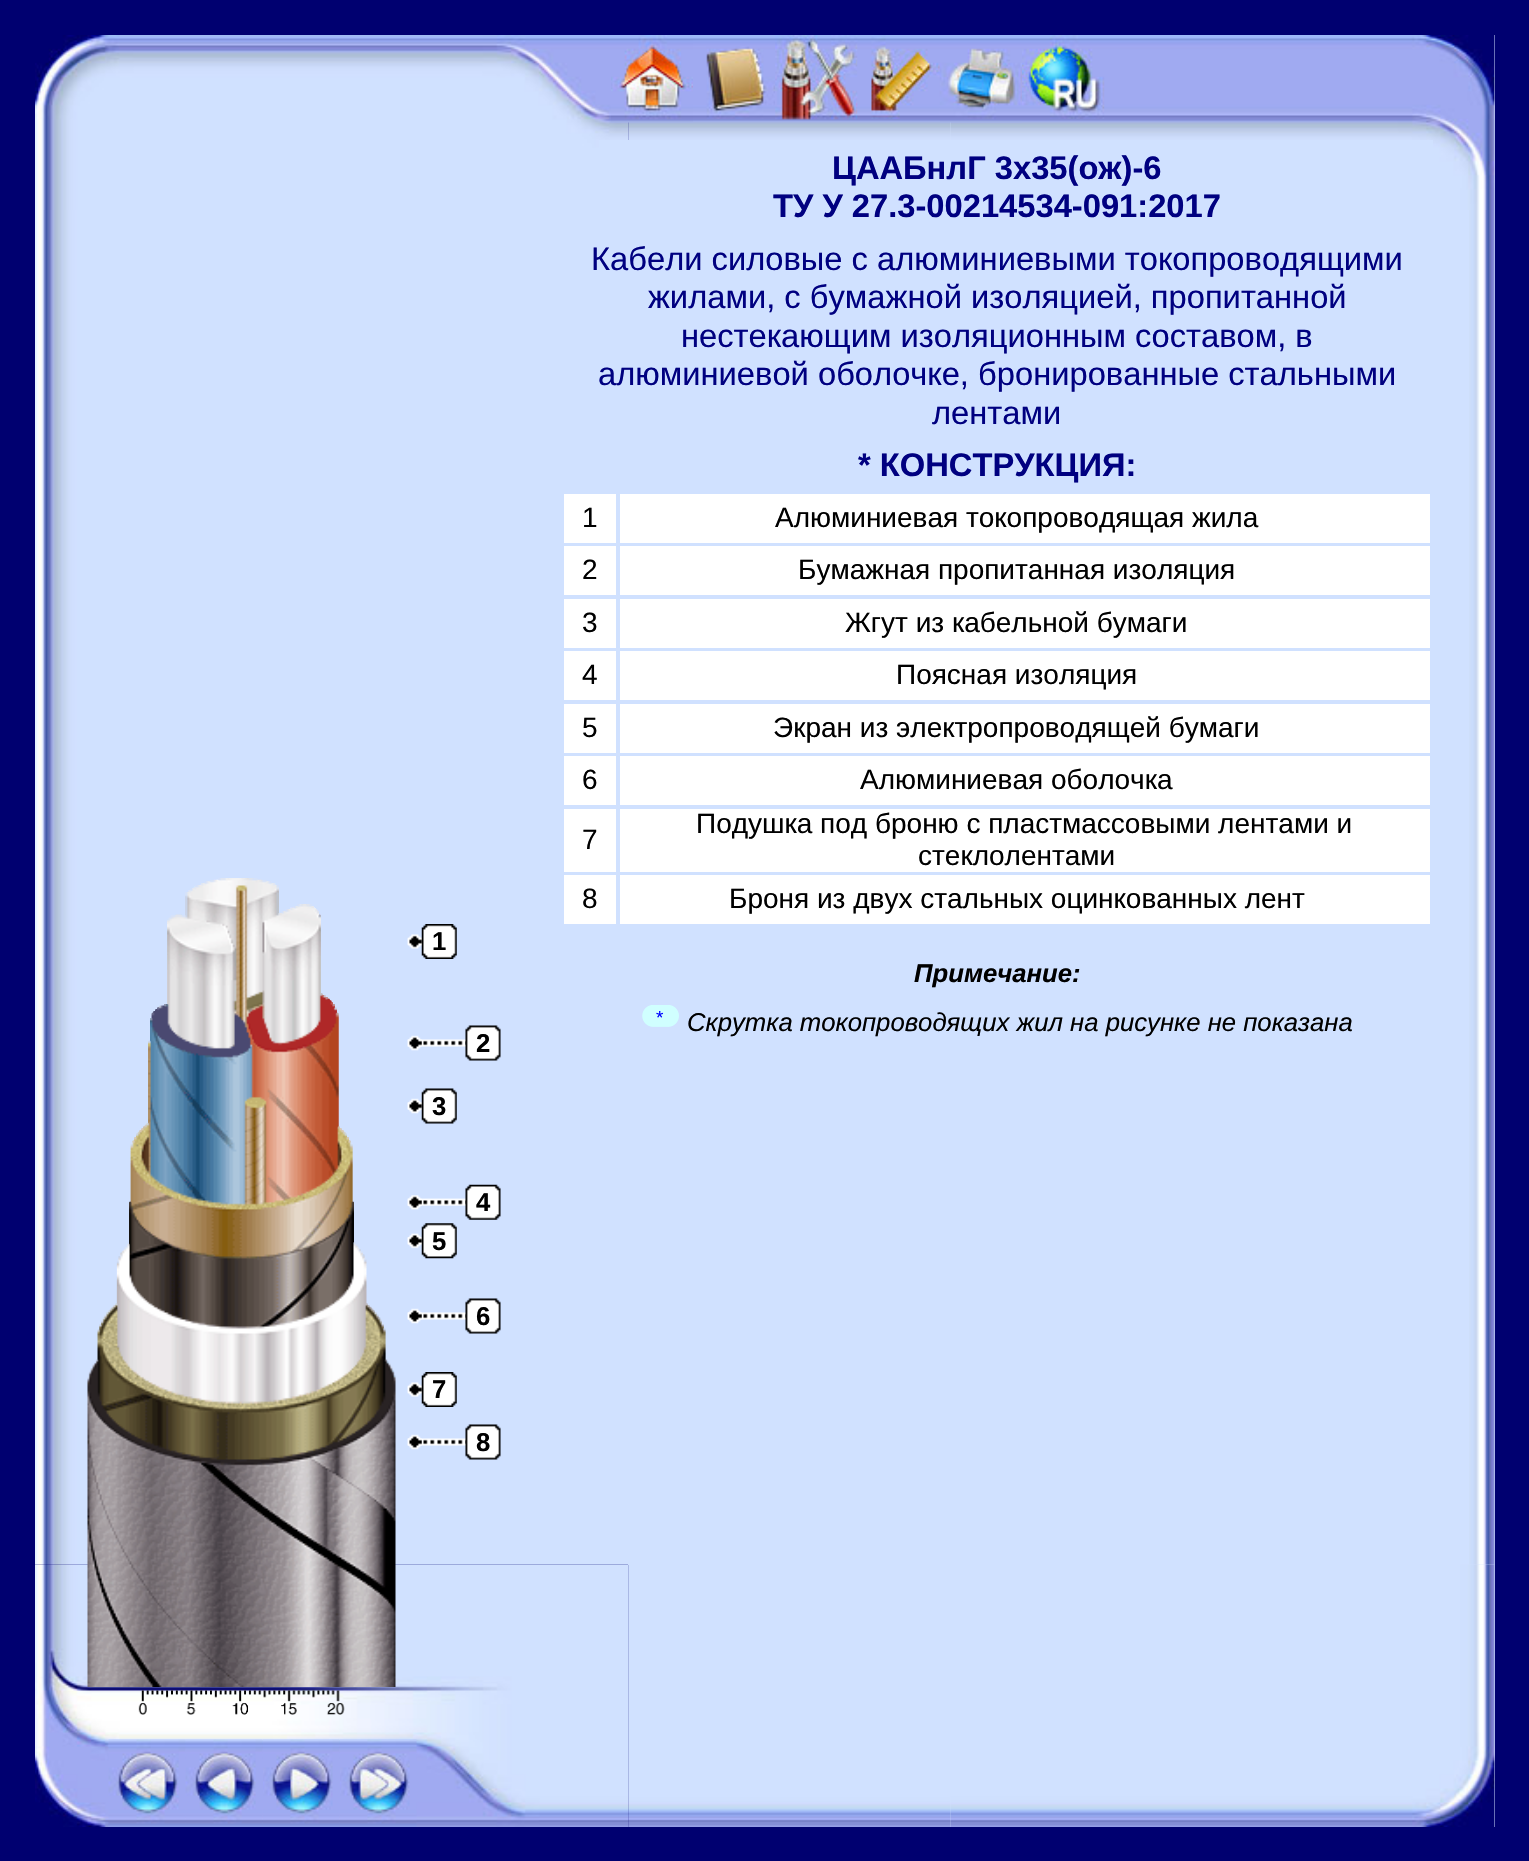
void draw(SkCanvas* canvas) {
  SkPaint paint;
  paint.setAntiAlias(true);
  auto face = [&](const char* family, int weight, float size, bool italic = false) {
    SkFontStyle style(weight, SkFontStyle::kNormal_Width,
      italic ? SkFontStyle::kItalic_Slant : SkFontStyle::kUpright_Slant);
    SkFont result(fontMgr->matchFamilyStyle(family, style), size);
    result.setSubpixel(true);
    return result;
  };
  auto paste = [&](const char* path, float x, float y, float w, float h) {
    auto image = SkImages::DeferredFromEncodedData(SkData::MakeFromFileName(path));
    canvas->drawImageRect(image, SkRect::MakeXYWH(x, y, w, h), SkSamplingOptions());
  };
  canvas->clear(0xff000070);
  paste("img/1.png", 35, 35, 594, 175);
  paste("img/2.png", 628, 35, 322, 105);
  paint.setColor(0xffd0e1ff);
  canvas->drawRect(SkRect::MakeXYWH(950, 35, 545, 1792), paint);
  paste("img/3.png", 950, 35, 545, 175);
  paste("img/4.png", 35, 210, 593, 1355);
  canvas->drawRect(SkRect::MakeXYWH(628, 1057, 322, 508), paint);
  paste("img/5.png", 1469, 210, 26, 1355);
  paste("img/6.png", 35, 1564, 594, 263);
  paste("img/7.png", 628, 1565, 322, 262);
  paste("img/8.png", 950, 1564, 545, 263);
  {
    const struct { float x, y, w, h; SkColor color; } items[] = {
      {599, 140, 834, 917, 0xffd0e1ff},
      {564, 494, 52, 49, 0xffffffff},
      {620, 494, 810, 49, 0xffffffff},
      {564, 546, 52, 49, 0xffffffff},
      {620, 546, 810, 49, 0xffffffff},
      {564, 599, 52, 49, 0xffffffff},
      {620, 599, 810, 49, 0xffffffff},
      {564, 651, 52, 49, 0xffffffff},
      {620, 651, 810, 49, 0xffffffff},
      {564, 704, 52, 49, 0xffffffff},
      {620, 704, 810, 49, 0xffffffff},
      {564, 756, 52, 49, 0xffffffff},
      {620, 756, 810, 49, 0xffffffff},
      {564, 809, 52, 63, 0xffffffff},
      {620, 809, 810, 63, 0xffffffff},
      {564, 875, 52, 49, 0xffffffff},
      {620, 875, 810, 49, 0xffffffff},
    };
    for (auto [x, y, w, h, color] : items) {
      paint.setColor(color);
      canvas->drawRect(SkRect::MakeXYWH(x, y, w, h), paint);
    }
  }
  paste("img/9.png", 642, 1005, 37, 22);
  paste("img/10.png", 611, 35, 82, 88);
  paste("img/11.png", 706, 46, 70, 73);
  paste("img/12.png", 775, 35, 83, 85);
  paste("img/13.png", 857, 35, 83, 84);
  paste("img/14.png", 939, 35, 83, 88);
  paste("img/15.png", 1022, 35, 83, 84);
  paste("img/19.png", 167, 878, 154, 127);
  paste("img/18.png", 150, 878, 189, 250);
  paste("img/17.png", 148, 878, 191, 250);
  paste("img/16.png", 130, 878, 223, 325);
  paste("img/25.png", 129, 891, 225, 354);
  paste("img/22.png", 129, 879, 225, 366);
  paste("img/21.png", 117, 879, 250, 426);
  paste("img/26.png", 117, 893, 250, 412);
  paste("img/23.png", 97, 880, 289, 481);
  paste("img/24.png", 97, 886, 289, 475);
  paste("img/20.png", 87, 879, 309, 808);
  paste("img/27.png", 407, 937, 15, 9);
  paste("img/28.png", 407, 934, 15, 15);
  paste("img/29.png", 421, 924, 36, 35);
  paste("img/30.png", 407, 1039, 59, 8);
  paste("img/31.png", 407, 1035, 15, 16);
  paste("img/32.png", 465, 1025, 36, 36);
  paste("img/33.png", 407, 1102, 15, 8);
  paste("img/34.png", 407, 1098, 15, 16);
  paste("img/35.png", 421, 1088, 36, 36);
  paste("img/36.png", 407, 1198, 59, 8);
  paste("img/37.png", 407, 1195, 15, 15);
  paste("img/38.png", 465, 1184, 36, 36);
  paste("img/39.png", 407, 1237, 15, 8);
  paste("img/40.png", 407, 1233, 15, 16);
  paste("img/41.png", 421, 1223, 36, 36);
  paste("img/42.png", 407, 1312, 59, 8);
  paste("img/34.png", 407, 1308, 15, 16);
  paste("img/32.png", 465, 1298, 36, 36);
  paste("img/27.png", 407, 1385, 15, 9);
  paste("img/28.png", 407, 1382, 15, 15);
  paste("img/29.png", 421, 1372, 36, 35);
  paste("img/43.png", 407, 1438, 59, 8);
  paste("img/44.png", 407, 1434, 15, 16);
  paste("img/32.png", 465, 1424, 36, 36);
  paste("img/45.png", 138, 1690, 207, 25);
  paste("img/46.png", 108, 1739, 78, 88);
  paste("img/47.png", 185, 1739, 78, 88);
  paste("img/48.png", 263, 1739, 77, 88);
  paste("img/49.png", 340, 1739, 77, 88);
  auto f0 = face("Liberation Sans", 700, 32.7f);
  paint.setColor(0xff000080);
  canvas->drawString("ЦААБнлГ 3x35(ож)-6", 832, 179, f0, paint);
  canvas->drawString("ТУ У 27.3-00214534-091:2017", 773, 217, f0, paint);
  auto f1 = face("Liberation Sans", 400, 32.7f);
  {
    const struct { const char* s; float x, y; } items[] = {
      {"Кабели силовые с алюминиевыми токопроводящими", 591, 270},
      {"жилами, с бумажной изоляцией, пропитанной", 648, 308},
      {"нестекающим изоляционным составом, в", 681, 347},
      {"алюминиевой оболочке, бронированные стальными", 598, 385},
      {"лентами", 932, 424},
    };
    for (auto [s, x, y] : items) {
      canvas->drawString(s, x, y, f1, paint);
    }
  }
  canvas->drawString("* КОНСТРУКЦИЯ:", 858, 476, f0, paint);
  auto f2 = face("Liberation Sans", 400, 28);
  paint.setColor(0xff000000);
  {
    const struct { const char* s; float x, y; } items[] = {
      {"1", 582, 527},
      {"Алюминиевая токопроводящая жила", 775, 527},
      {"2", 582, 579},
      {"Бумажная пропитанная изоляция", 798, 579},
      {"3", 582, 632},
      {"Жгут из кабельной бумаги", 845, 632},
      {"4", 582, 684},
      {"Поясная изоляция", 896, 684},
      {"5", 582, 737},
      {"Экран из электропроводящей бумаги", 773, 737},
      {"6", 582, 789},
      {"Алюминиевая оболочка", 860, 789},
      {"7", 582, 849},
      {"Подушка под броню с пластмассовыми лентами и", 696, 833},
      {"стеклолентами", 918, 865},
      {"8", 582, 908},
      {"Броня из двух стальных оцинкованных лент", 729, 908},
    };
    for (auto [s, x, y] : items) {
      canvas->drawString(s, x, y, f2, paint);
    }
  }
  auto f3 = face("Liberation Sans", 700, 25.7f, true);
  canvas->drawString("Примечание:", 914, 982, f3, paint);
  auto f4 = face("Liberation Sans", 400, 19);
  paint.setColor(0xff0000ff);
  canvas->drawString("*", 656, 1024, f4, paint);
  auto f5 = face("Liberation Sans", 400, 25.7f, true);
  paint.setColor(0xff000000);
  canvas->drawString("Скрутка токопроводящих жил на рисунке не показана", 687, 1031, f5, paint);
  auto f6 = face("Liberation Sans", 700, 25.7f);
  {
    const struct { const char* s; float x, y; } items[] = {
      {"1", 432, 950},
      {"2", 476, 1052},
      {"3", 432, 1115},
      {"4", 476, 1211},
      {"5", 432, 1250},
      {"6", 476, 1325},
      {"7", 432, 1398},
      {"8", 476, 1451},
    };
    for (auto [s, x, y] : items) {
      canvas->drawString(s, x, y, f6, paint);
    }
  }
}
